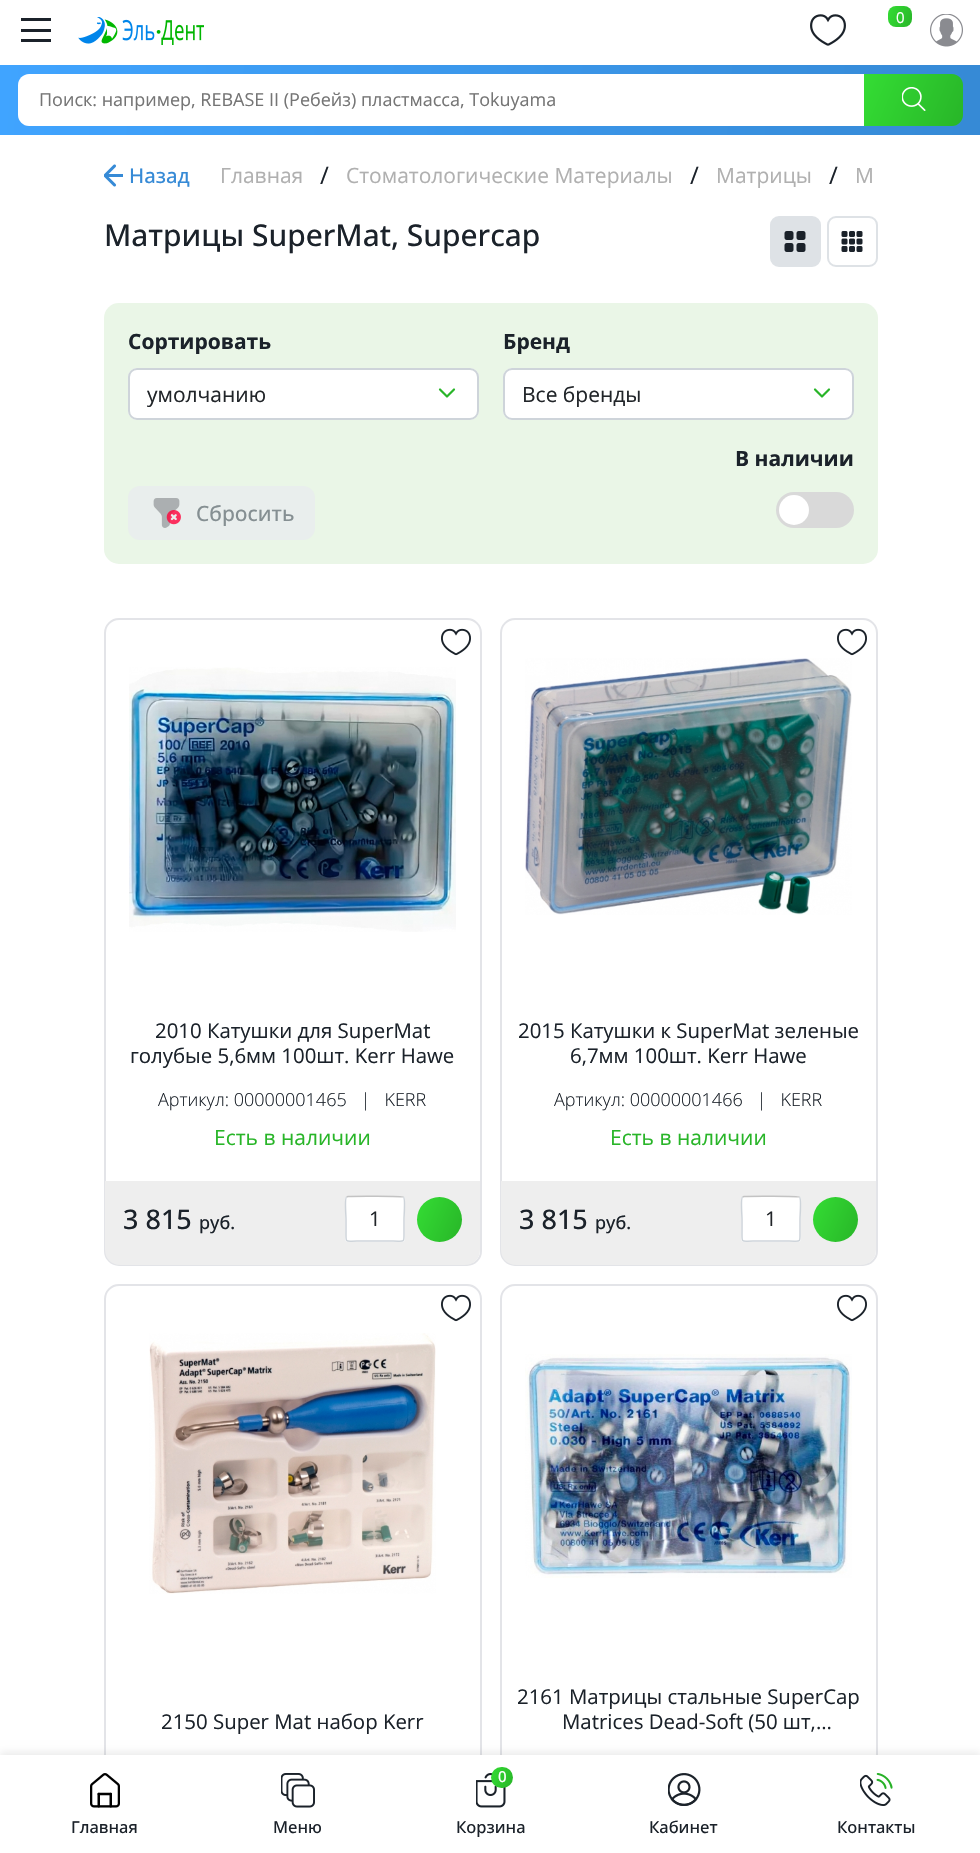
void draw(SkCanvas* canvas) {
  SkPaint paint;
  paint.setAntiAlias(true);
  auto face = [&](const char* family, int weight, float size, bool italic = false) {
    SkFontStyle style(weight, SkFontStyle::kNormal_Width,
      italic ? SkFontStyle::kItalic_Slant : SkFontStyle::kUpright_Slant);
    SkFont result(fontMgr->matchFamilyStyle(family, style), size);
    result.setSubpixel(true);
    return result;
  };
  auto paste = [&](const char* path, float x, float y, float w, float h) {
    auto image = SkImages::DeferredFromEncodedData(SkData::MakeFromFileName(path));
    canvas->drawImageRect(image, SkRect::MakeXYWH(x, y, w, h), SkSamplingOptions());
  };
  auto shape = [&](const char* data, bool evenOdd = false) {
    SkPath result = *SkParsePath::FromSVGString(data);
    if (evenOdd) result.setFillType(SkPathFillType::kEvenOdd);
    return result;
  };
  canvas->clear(0xffffffff);
  {
    const struct { float x, y, w, h; SkColor color; } items[] = {
      {21, 18, 30, 3, 0xff1b222a},
      {21, 29, 30, 3, 0xff1b222a},
      {21, 39, 30, 3, 0xff1b222a},
    };
    for (auto [x, y, w, h, color] : items) {
      paint.setColor(color);
      canvas->drawRect(SkRect::MakeXYWH(x, y, w, h), paint);
    }
  }
  paste("img/1.png", 78, 17, 126, 28);
  paste("img/2.png", 810, 14, 36, 32);
  {
    const SkColor colors[] = {0xff28b528, 0xff34dd34};
    const float stops[] = {0, 1};
    const SkPoint ends[] = {{914, 22}, {886, 11}};
    paint.setShader(SkGradientShader::MakeLinear(ends, colors, stops, 2, SkTileMode::kClamp));
    paint.setAlpha(255);
  }
  canvas->drawRoundRect(SkRect::MakeXYWH(888, 6, 24, 21), 8, 8, paint);
  paste("img/3.png", 930, 14, 33, 33);
  {
    const SkColor colors[] = {0xff40a4ff, 0xff368ad6};
    const float stops[] = {0, 0.99f};
    const SkPoint ends[] = {{-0.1f, 65}, {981, 134}};
    paint.setShader(SkGradientShader::MakeLinear(ends, colors, stops, 2, SkTileMode::kClamp));
    paint.setAlpha(255);
  }
  canvas->drawRect(SkRect::MakeXYWH(0, 65, 980, 70), paint);
  paint.setShader(nullptr);
  paint.setColor(0xffffffff);
  canvas->drawPath(shape("M29 74H864V126H29C23 126 18 121 18 115V85C18 79 23 74 29 74Z"), paint);
  {
    const SkColor colors[] = {0xff28b528, 0xff34dd34};
    const float stops[] = {0, 1};
    const SkPoint ends[] = {{965, 122}, {862, 78}};
    paint.setShader(SkGradientShader::MakeLinear(ends, colors, stops, 2, SkTileMode::kClamp));
    paint.setAlpha(255);
  }
  canvas->drawPath(shape("M864 74H952C958 74 963 79 963 85V115C963 121 958 126 952 126H864Z"), paint);
  paste("img/4.png", 902, 87, 24, 24);
  paste("img/5.png", 104, 164, 19, 23);
  paint.setShader(nullptr);
  paint.setColor(0xffdee2e6);
  canvas->drawRoundRect(SkRect::MakeXYWH(771, 217, 49, 49), 8, 8, paint);
  paint.setStroke(true);
  paint.setStrokeWidth(2);
  canvas->drawRoundRect(SkRect::MakeXYWH(771, 217, 49, 49), 8, 8, paint);
  paste("img/6.png", 784, 231, 22, 21);
  canvas->drawRoundRect(SkRect::MakeXYWH(828, 217, 49, 49), 8, 8, paint);
  paste("img/7.png", 841, 231, 22, 21);
  paint.setStroke(false);
  paint.setColor(0xffeaf6e7);
  canvas->drawRoundRect(SkRect::MakeXYWH(104, 303, 774, 261), 15, 15, paint);
  paint.setColor(0xffffffff);
  canvas->drawRoundRect(SkRect::MakeXYWH(128, 368, 351, 52), 9, 9, paint);
  paint.setStroke(true);
  paint.setStrokeWidth(2.2f);
  paint.setStrokeCap(SkPaint::kRound_Cap);
  paint.setStrokeJoin(SkPaint::kRound_Join);
  paint.setColor(0xff28b528);
  canvas->drawPath(shape("M440 389.5L447 396.5L454 389.5"), paint);
  paint.setStrokeWidth(2);
  paint.setStrokeCap(SkPaint::kButt_Cap);
  paint.setStrokeJoin(SkPaint::kMiter_Join);
  paint.setColor(0xffced4da);
  canvas->drawRoundRect(SkRect::MakeXYWH(129, 369, 349, 50), 8, 8, paint);
  paint.setStroke(false);
  paint.setColor(0xffffffff);
  canvas->drawRoundRect(SkRect::MakeXYWH(503, 368, 351, 52), 9, 9, paint);
  paint.setStroke(true);
  paint.setStrokeWidth(2.2f);
  paint.setStrokeCap(SkPaint::kRound_Cap);
  paint.setStrokeJoin(SkPaint::kRound_Join);
  paint.setColor(0xff28b528);
  canvas->drawPath(shape("M815 389.5L822 396.5L829 389.5"), paint);
  paint.setStrokeWidth(2);
  paint.setStrokeCap(SkPaint::kButt_Cap);
  paint.setStrokeJoin(SkPaint::kMiter_Join);
  paint.setColor(0xffced4da);
  canvas->drawRoundRect(SkRect::MakeXYWH(504, 369, 349, 50), 8, 8, paint);
  paint.setStroke(false);
  paint.setColor(0xffd9d9d9);
  canvas->drawRoundRect(SkRect::MakeXYWH(776, 492, 78, 36), 18, 18, paint);
  paint.setColor(0xffffffff);
  canvas->drawCircle(794, 510, 15, paint);
  paint.setColor(0xffe9eeed);
  canvas->drawRoundRect(SkRect::MakeXYWH(128, 486, 187, 54), 12, 12, paint);
  paste("img/8.png", 153, 498, 28, 30);
  paint.setStroke(true);
  paint.setColor(0xffe3e4e8);
  canvas->drawRoundRect(SkRect::MakeXYWH(105, 619, 376, 646), 14, 14, paint);
  paste("img/9.png", 441, 628, 30, 28);
  paste("img/10.png", 129, 667, 327, 265);
  paint.setStroke(false);
  paint.setColor(0xffeeeeee);
  canvas->drawPath(shape("M105 1181H480V1250C480 1258.5 473.5 1265 465 1265H120C111.5 1265 105 1258.5 105 1250Z"), paint);
  paint.setColor(0xffffffff);
  canvas->drawRoundRect(SkRect::MakeXYWH(345, 1196, 60, 46), 3, 3, paint);
  paint.setStroke(true);
  paint.setStrokeWidth(1.5f);
  paint.setColor(0xffc3c3c3);
  canvas->drawPath(shape("M346.5 1197L348 1196.5C352.5 1196 402.5 1196 403.5 1197"), paint);
  paint.setColor(0xffced4da);
  canvas->drawPath(shape("M403.5 1197C405.5 1198.5 404 1215.5 404 1219V1232C404 1243.5 405 1241 393 1241H357C345 1241 346 1243.5 346 1232V1219C346 1215.5 344.5 1198.5 346.5 1197"), paint);
  paint.setStroke(false);
  {
    const SkColor colors[] = {0xff28b528, 0xff34dd34};
    const float stops[] = {0, 1};
    const SkPoint ends[] = {{467, 1231}, {412, 1208}};
    paint.setShader(SkGradientShader::MakeLinear(ends, colors, stops, 2, SkTileMode::kClamp));
    paint.setAlpha(255);
  }
  canvas->drawCircle(439.5f, 1219.5f, 22.5f, paint);
  paint.setStroke(true);
  paint.setStrokeWidth(2);
  paint.setShader(nullptr);
  paint.setColor(0xffe3e4e8);
  canvas->drawRoundRect(SkRect::MakeXYWH(501, 619, 376, 646), 14, 14, paint);
  paste("img/9.png", 837, 628, 30, 28);
  paste("img/11.png", 525, 658, 327, 257);
  paint.setStroke(false);
  paint.setColor(0xffeeeeee);
  canvas->drawPath(shape("M501 1181H876V1250C876 1258.5 869.5 1265 861 1265H516C507.5 1265 501 1258.5 501 1250Z"), paint);
  paint.setColor(0xffffffff);
  canvas->drawRoundRect(SkRect::MakeXYWH(741, 1196, 60, 46), 3, 3, paint);
  paint.setStroke(true);
  paint.setStrokeWidth(1.5f);
  paint.setColor(0xffc3c3c3);
  canvas->drawPath(shape("M742.5 1197L744 1196.5C748.5 1196 798.5 1196 799.5 1197"), paint);
  paint.setColor(0xffced4da);
  canvas->drawPath(shape("M799.5 1197C801.5 1198.5 800 1215.5 800 1219V1232C800 1243.5 801 1241 789 1241H753C741 1241 742 1243.5 742 1232V1219C742 1215.5 740.5 1198.5 742.5 1197"), paint);
  paint.setStroke(false);
  {
    const SkColor colors[] = {0xff28b528, 0xff34dd34};
    const float stops[] = {0, 1};
    const SkPoint ends[] = {{863, 1231}, {808, 1208}};
    paint.setShader(SkGradientShader::MakeLinear(ends, colors, stops, 2, SkTileMode::kClamp));
    paint.setAlpha(255);
  }
  canvas->drawCircle(835.5f, 1219.5f, 22.5f, paint);
  paint.setStroke(true);
  paint.setStrokeWidth(2);
  paint.setShader(nullptr);
  paint.setColor(0xffe3e4e8);
  canvas->drawRoundRect(SkRect::MakeXYWH(105, 1285, 376, 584), 14, 14, paint);
  paste("img/9.png", 441, 1294, 30, 28);
  paste("img/12.png", 149, 1333, 287, 261);
  canvas->drawRoundRect(SkRect::MakeXYWH(501, 1285, 376, 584), 14, 14, paint);
  paste("img/9.png", 837, 1294, 30, 28);
  paste("img/13.png", 525, 1354, 327, 224);
  paint.setStroke(false);
  paint.setColor(0x14000000);
  paint.setMaskFilter(SkMaskFilter::MakeBlur(kNormal_SkBlurStyle, 4));
  canvas->drawRect(SkRect::MakeXYWH(0, 1752, 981, 99), paint);
  paint.setMaskFilter(nullptr);
  paint.setColor(0xffffffff);
  canvas->drawRect(SkRect::MakeXYWH(0, 1755, 980, 98), paint);
  paste("img/14.png", 90, 1773, 30, 35);
  paste("img/15.png", 281, 1773, 34, 35);
  paste("img/16.png", 476, 1773, 30, 35);
  {
    const SkColor colors[] = {0xff28b528, 0xff34dd34};
    const float stops[] = {0, 1};
    const SkPoint ends[] = {{515, 1783}, {488, 1772}};
    paint.setShader(SkGradientShader::MakeLinear(ends, colors, stops, 2, SkTileMode::kClamp));
    paint.setAlpha(255);
  }
  canvas->drawRoundRect(SkRect::MakeXYWH(491, 1767, 22, 21), 10.5f, 10.5f, paint);
  paste("img/17.png", 668, 1773, 33, 33);
  paste("img/18.png", 860, 1773, 33, 33);
  auto f0 = face("Open Sans", 400, 15);
  paint.setShader(nullptr);
  paint.setColor(0xffffffff);
  canvas->drawString("0", 896, 23, f0, paint);
  auto f1 = face("Open Sans", 400, 18);
  paint.setColor(0xff757575);
  canvas->drawString("Поиск: например, REBASE II (Ребейз) пластмасса, Tokuyama", 39, 106, f1, paint);
  auto f2 = face("Open Sans", 500, 20.4f);
  paint.setColor(0xff368ad6);
  canvas->drawString("Назад", 129, 183, f2, paint);
  auto f3 = face("Open Sans", 400, 21);
  paint.setColor(0xffb0b0b0);
  canvas->drawString("Главная", 220, 183, f3, paint);
  auto f4 = face("Open Sans", 400, 24);
  paint.setColor(0xff1b222a);
  canvas->drawString("/", 320, 184, f4, paint);
  paint.setColor(0xffb0b0b0);
  canvas->drawString("Стоматологические Материалы", 346, 183, f3, paint);
  paint.setColor(0xff1b222a);
  canvas->drawString("/", 690, 184, f4, paint);
  paint.setColor(0xffb0b0b0);
  canvas->drawString("Матрицы", 716, 183, f3, paint);
  paint.setColor(0xff1b222a);
  canvas->drawString("/", 829, 184, f4, paint);
  paint.setColor(0xffb0b0b0);
  canvas->drawString("М", 855, 183, f3, paint);
  auto f5 = face("Open Sans", 500, 30);
  paint.setColor(0xff1b222a);
  canvas->drawString("Матрицы SuperMat, Supercap", 104, 246, f5, paint);
  auto f6 = face("Open Sans", 700, 21);
  canvas->drawString("Сортировать", 128, 349, f6, paint);
  paint.setColor(0xff212529);
  canvas->drawString("умолчанию", 147, 402, f3, paint);
  paint.setColor(0xff1b222a);
  canvas->drawString("Бренд", 503, 349, f6, paint);
  paint.setColor(0xff212529);
  canvas->drawString("Все бренды", 522, 402, f3, paint);
  paint.setColor(0xff1b222a);
  canvas->drawString("В наличии", 735, 466, f6, paint);
  auto f7 = face("Open Sans", 500, 21);
  paint.setColor(0xff858f92);
  canvas->drawString("Сбросить", 196, 521, f7, paint);
  auto f8 = face("Open Sans", 400, 20.4f);
  paint.setColor(0xff1b222a);
  canvas->drawString("2010 Катушки для SuperMat", 155, 1038, f8, paint);
  canvas->drawString("голубые 5,6мм 100шт. Kerr Hawe", 130, 1063, f8, paint);
  auto f9 = face("Open Sans", 300, 18);
  canvas->drawString("Артикул: 00000001465   |   KERR", 158, 1106, f9, paint);
  paint.setColor(0xff28b528);
  canvas->drawString("Есть в наличии", 214, 1145, f3, paint);
  auto f10 = face("Open Sans", 500, 27);
  paint.setColor(0xff1b222a);
  canvas->drawString("3 815", 123, 1229, f10, paint);
  auto f11 = face("Open Sans", 500, 18);
  canvas->drawString("руб.", 199, 1229, f11, paint);
  paint.setColor(0xff212529);
  canvas->drawString("1", 369, 1226, f8, paint);
  paint.setColor(0xff1b222a);
  canvas->drawString("2015 Катушки к SuperMat зеленые", 518, 1038, f8, paint);
  canvas->drawString("6,7мм 100шт. Kerr Hawe", 570, 1063, f8, paint);
  canvas->drawString("Артикул: 00000001466   |   KERR", 554, 1106, f9, paint);
  paint.setColor(0xff28b528);
  canvas->drawString("Есть в наличии", 610, 1145, f3, paint);
  paint.setColor(0xff1b222a);
  canvas->drawString("3 815", 519, 1229, f10, paint);
  canvas->drawString("руб.", 595, 1229, f11, paint);
  paint.setColor(0xff212529);
  canvas->drawString("1", 765, 1226, f8, paint);
  paint.setColor(0xff1b222a);
  {
    const struct { const char* s; float x, y; } items[] = {
      {"2150 Super Mat набор Kerr", 161, 1729},
      {"2161 Матрицы стальные SuperCap", 517, 1704},
      {"Matrices Dead-Soft (50 шт,…", 562, 1729},
    };
    for (auto [s, x, y] : items) {
      canvas->drawString(s, x, y, f8, paint);
    }
  }
  auto f12 = face("Open Sans", 500, 16.5f);
  canvas->drawString("Главная", 71, 1833, f12, paint);
  canvas->drawString("Меню", 273, 1833, f12, paint);
  auto f13 = face("Open Sans", 500, 15);
  paint.setColor(0xffffffff);
  canvas->drawString("0", 498, 1782, f13, paint);
  paint.setColor(0xff1b222a);
  {
    const struct { const char* s; float x, y; } items[] = {
      {"Корзина", 456, 1833},
      {"Кабинет", 649, 1833},
      {"Контакты", 837, 1833},
    };
    for (auto [s, x, y] : items) {
      canvas->drawString(s, x, y, f12, paint);
    }
  }
}
